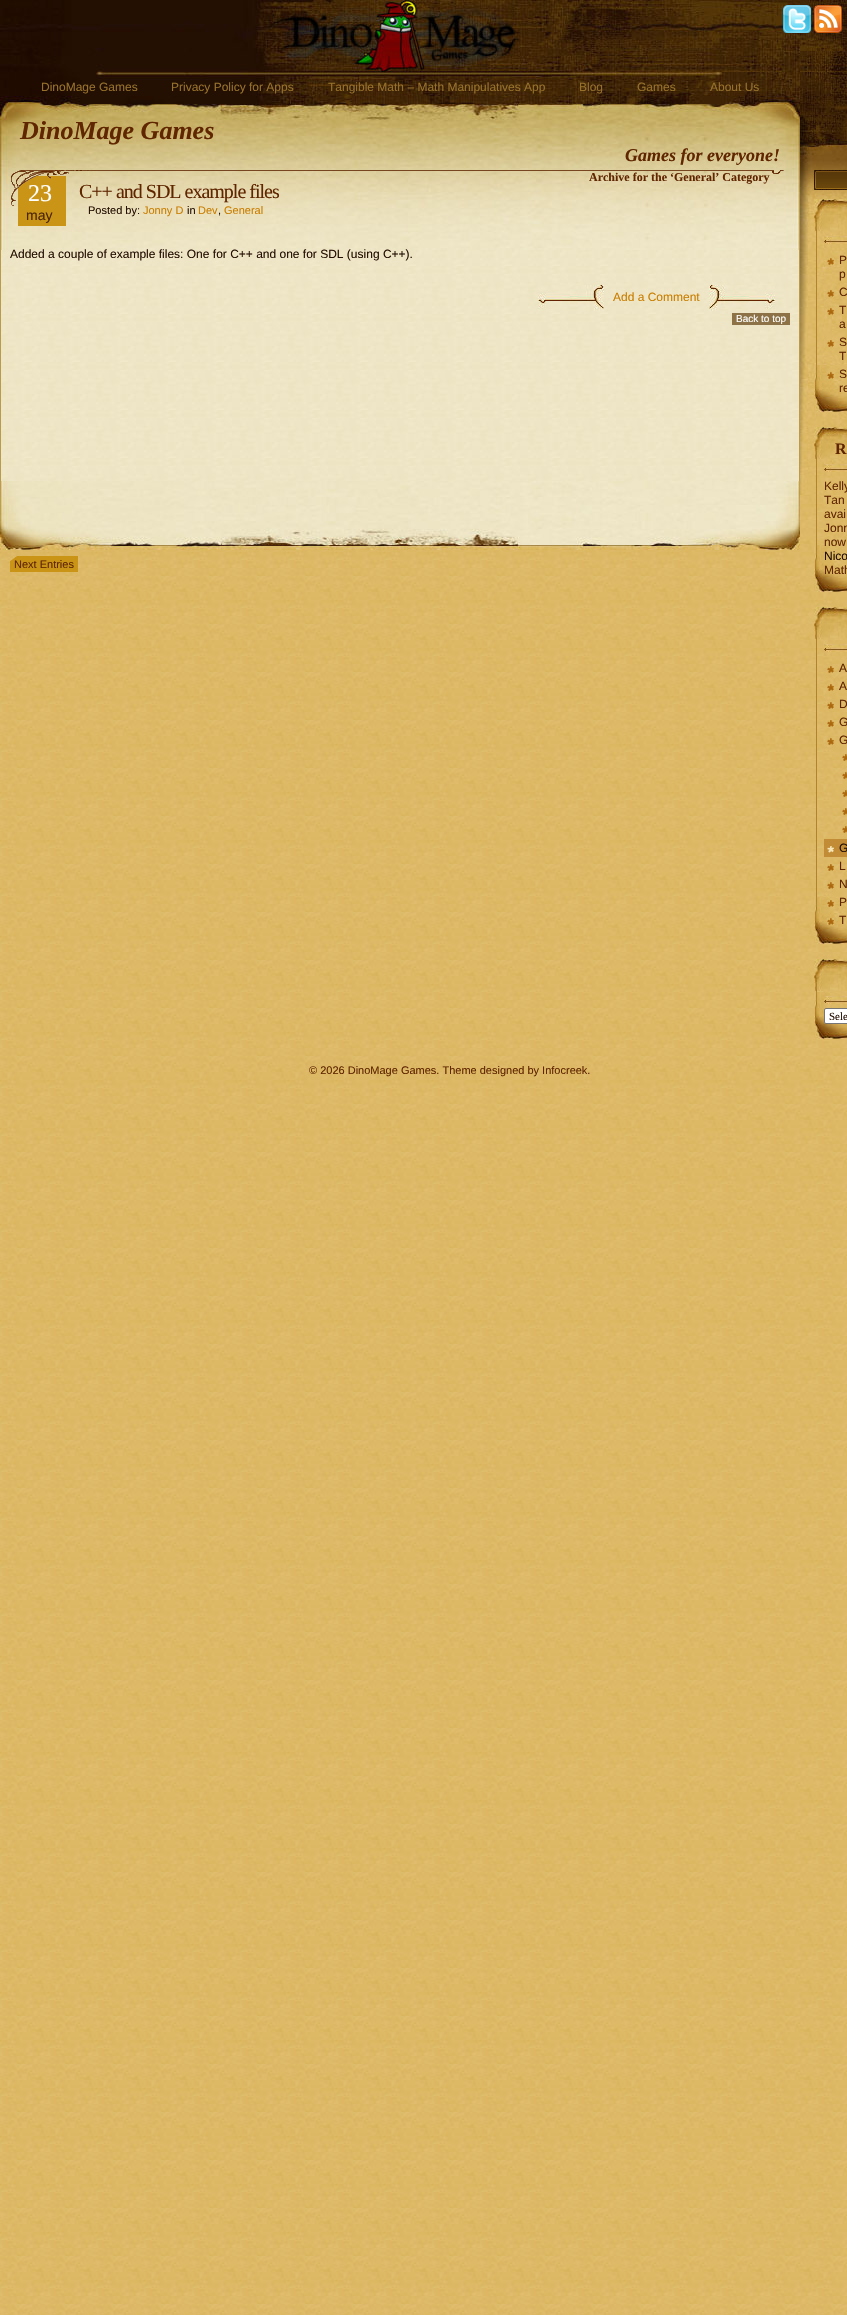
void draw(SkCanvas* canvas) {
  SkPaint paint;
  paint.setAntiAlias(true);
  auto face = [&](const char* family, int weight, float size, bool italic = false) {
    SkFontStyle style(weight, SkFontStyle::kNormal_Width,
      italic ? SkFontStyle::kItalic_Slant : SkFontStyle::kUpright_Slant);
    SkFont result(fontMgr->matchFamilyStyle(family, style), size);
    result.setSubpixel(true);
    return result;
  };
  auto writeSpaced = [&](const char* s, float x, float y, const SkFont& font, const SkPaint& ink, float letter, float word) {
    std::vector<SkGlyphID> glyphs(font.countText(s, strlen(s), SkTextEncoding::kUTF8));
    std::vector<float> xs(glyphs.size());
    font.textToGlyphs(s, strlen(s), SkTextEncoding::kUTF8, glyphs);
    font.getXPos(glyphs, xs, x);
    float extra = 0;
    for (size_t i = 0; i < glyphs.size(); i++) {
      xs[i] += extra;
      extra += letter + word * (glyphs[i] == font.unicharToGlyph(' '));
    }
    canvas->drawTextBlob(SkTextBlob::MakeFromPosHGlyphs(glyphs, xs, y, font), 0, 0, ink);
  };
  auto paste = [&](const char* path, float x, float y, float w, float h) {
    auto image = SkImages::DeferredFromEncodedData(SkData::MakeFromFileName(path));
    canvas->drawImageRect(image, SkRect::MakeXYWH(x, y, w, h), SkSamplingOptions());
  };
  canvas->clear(0xffffffff);
  paste("img/1.png", 0, 495, 847, 1820);
  paste("img/5.png", 800, 0, 47, 51);
  paste("img/6.png", 0, 0, 800, 170);
  paste("img/2.png", 783, 5, 28, 28);
  paste("img/3.png", 814, 5, 28, 28);
  paste("img/4.png", 800, 51, 47, 64);
  paste("img/7.png", 800, 115, 47, 380);
  paste("img/8.png", 814, 170, 33, 20);
  paste("img/9.png", 1, 250, 798, 231);
  paint.setColor(0xffb99a4e);
  canvas->drawRect(SkRect::MakeXYWH(799, 250, 1, 231), paint);
  canvas->drawRect(SkRect::MakeXYWH(0, 250, 1, 231), paint);
  paste("img/10.png", 0, 481, 800, 69);
  paste("img/11.png", 0, 170, 800, 80);
  paste("img/14.png", 709, 285, 66, 26);
  paste("img/15.png", 538, 285, 66, 26);
  paint.setColor(0xff8c7246);
  canvas->drawRect(SkRect::MakeXYWH(732, 313, 58, 12), paint);
  paint.setColor(0xffca9417);
  canvas->drawRect(SkRect::MakeXYWH(10, 556, 68, 16), paint);
  paste("img/16.png", 10, 556, 7, 5);
  paint.setColor(0xffb1832e);
  canvas->drawRect(SkRect::MakeXYWH(816, 231, 1, 134), paint);
  paste("img/17.png", 814, 365, 33, 47);
  paste("img/18.png", 814, 199, 33, 32);
  paste("img/19.png", 824, 236, 23, 12);
  paste("img/20.png", 827, 258, 7, 7);
  paste("img/20.png", 827, 290, 7, 7);
  paste("img/20.png", 827, 308, 7, 7);
  paste("img/20.png", 827, 340, 7, 7);
  paste("img/20.png", 827, 372, 7, 7);
  canvas->drawRect(SkRect::MakeXYWH(816, 459, 1, 86), paint);
  paste("img/17.png", 814, 545, 33, 47);
  paste("img/18.png", 814, 427, 33, 32);
  paste("img/19.png", 824, 464, 23, 12);
  canvas->drawRect(SkRect::MakeXYWH(816, 639, 1, 258), paint);
  paste("img/17.png", 814, 897, 33, 47);
  paste("img/18.png", 814, 607, 33, 32);
  paste("img/19.png", 824, 644, 23, 12);
  paste("img/20.png", 827, 666, 7, 7);
  paste("img/20.png", 827, 684, 7, 7);
  paste("img/20.png", 827, 702, 7, 7);
  paste("img/20.png", 827, 720, 7, 7);
  paste("img/20.png", 827, 738, 7, 7);
  paste("img/21.png", 842, 754, 5, 7);
  paste("img/21.png", 842, 772, 5, 7);
  paste("img/21.png", 842, 790, 5, 7);
  paste("img/21.png", 842, 808, 5, 7);
  paste("img/21.png", 842, 826, 5, 7);
  paint.setColor(0xffc18c35);
  canvas->drawRect(SkRect::MakeXYWH(824, 839, 23, 18), paint);
  paste("img/22.png", 827, 846, 7, 7);
  paste("img/20.png", 827, 864, 7, 7);
  paste("img/20.png", 827, 882, 7, 7);
  paste("img/20.png", 827, 900, 7, 7);
  paste("img/20.png", 827, 918, 7, 7);
  paint.setColor(0xffb1832e);
  canvas->drawRect(SkRect::MakeXYWH(816, 991, 1, 1), paint);
  paste("img/17.png", 814, 992, 33, 47);
  paste("img/18.png", 814, 959, 33, 32);
  paste("img/19.png", 824, 996, 23, 12);
  paint.setColor(0xffffffff);
  canvas->drawRoundRect(SkRect::MakeXYWH(824.5f, 1008.5f, 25, 15), 1.5f, 1.5f, paint);
  paint.setStroke(true);
  paint.setStrokeWidth(1);
  paint.setColor(0xff767676);
  canvas->drawRoundRect(SkRect::MakeXYWH(824.5f, 1008.5f, 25, 15), 1.5f, 1.5f, paint);
  auto f0 = face("Liberation Sans", 400, 12);
  paint.setStroke(false);
  paint.setColor(0xff97712c);
  {
    const struct { const char* s; float x, y; } items[] = {
      {"DinoMage Games", 41, 91},
      {"Privacy Policy for Apps", 171, 91},
      {"Tangible Math – Math Manipulatives App", 328, 91},
      {"Blog", 579, 91},
      {"Games", 637, 91},
      {"About Us", 710, 91},
    };
    for (auto [s, x, y] : items) {
      canvas->drawString(s, x, y, f0, paint);
    }
  }
  auto f1 = face("Liberation Serif", 700, 26, true);
  paint.setColor(0xff602600);
  canvas->drawString("DinoMage Games", 20, 139, f1, paint);
  auto f2 = face("Liberation Serif", 700, 18, true);
  canvas->drawString("Games for everyone!", 625, 161, f2, paint);
  auto f3 = face("Liberation Serif", 700, 12);
  canvas->drawString("Archive for the ‘General’ Category", 589, 181, f3, paint);
  paste("img/12.png", 66, 170, 718, 4);
  paste("img/13.png", 11, 170, 58, 56);
  auto f4 = face("Liberation Serif", 400, 24);
  paint.setColor(0xffffffff);
  canvas->drawString("23", 28, 201, f4, paint);
  auto f5 = face("Liberation Sans", 400, 14);
  paint.setColor(0xff4c2604);
  canvas->drawString("may", 26, 220, f5, paint);
  auto f6 = face("Liberation Serif", 400, 20);
  paint.setColor(0xff602600);
  writeSpaced("C++ and SDL example files", 79, 198, f6, paint, -1, 0);
  auto f7 = face("Liberation Sans", 400, 11);
  paint.setColor(0xff240f02);
  canvas->drawString("Posted by:", 88, 214, f7, paint);
  paint.setColor(0xffc97e00);
  canvas->drawString("Jonny D", 143, 214, f7, paint);
  paint.setColor(0xff240f02);
  canvas->drawString("in", 187, 214, f7, paint);
  paint.setColor(0xffc97e00);
  canvas->drawString("Dev", 198, 214, f7, paint);
  paint.setColor(0xff240f02);
  canvas->drawString(",", 218, 214, f7, paint);
  paint.setColor(0xffc97e00);
  canvas->drawString("General", 224, 214, f7, paint);
  paint.setColor(0xff240f02);
  canvas->drawString("Added a couple of example files: One for C++ and one for SDL (using C++).", 10, 258, f0, paint);
  paint.setColor(0xffc97e00);
  canvas->drawString("Add a Comment", 613, 301, f0, paint);
  auto f8 = face("Liberation Sans", 400, 10);
  paint.setColor(0xffffffff);
  canvas->drawString("Back to top", 736, 322, f8, paint);
  paint.setColor(0xff602600);
  canvas->drawString("Next Entries", 14, 568, f7, paint);
  {
    const struct { const char* s; float x, y; } items[] = {
      {"P", 839, 264},
      {"p", 839, 278},
      {"C", 839, 296},
      {"T", 839, 314},
      {"a", 839, 328},
      {"S", 839, 346},
      {"T", 839, 360},
      {"S", 839, 378},
      {"re", 839, 392},
    };
    for (auto [s, x, y] : items) {
      canvas->drawString(s, x, y, f0, paint);
    }
  }
  auto f9 = face("Liberation Serif", 700, 16);
  canvas->drawString("R", 835, 454, f9, paint);
  {
    const struct { const char* s; float x, y; } items[] = {
      {"Kelly", 824, 490},
      {"Tan", 824, 504},
      {"avai", 824, 518},
      {"Jonn", 824, 532},
      {"now", 824, 546},
    };
    for (auto [s, x, y] : items) {
      canvas->drawString(s, x, y, f0, paint);
    }
  }
  paint.setColor(0xff240f02);
  canvas->drawString("Nico", 824, 560, f0, paint);
  paint.setColor(0xff602600);
  {
    const struct { const char* s; float x, y; } items[] = {
      {"Math", 824, 574},
      {"A", 839, 672},
      {"A", 839, 690},
      {"D", 839, 708},
      {"G", 839, 726},
      {"G", 839, 744},
    };
    for (auto [s, x, y] : items) {
      canvas->drawString(s, x, y, f0, paint);
    }
  }
  paint.setColor(0xff240f02);
  canvas->drawString("G", 839, 852, f0, paint);
  paint.setColor(0xff602600);
  {
    const struct { const char* s; float x, y; } items[] = {
      {"L", 839, 870},
      {"N", 839, 888},
      {"P", 839, 906},
      {"T", 839, 924},
    };
    for (auto [s, x, y] : items) {
      canvas->drawString(s, x, y, f0, paint);
    }
  }
  auto f10 = face("Liberation Serif", 400, 11);
  paint.setColor(0xff240f02);
  canvas->drawString("Sele", 829, 1020, f10, paint);
  paint.setColor(0xff602600);
  canvas->drawString("© 2026 DinoMage Games. Theme designed by Infocreek.", 309, 1074, f7, paint);
}
